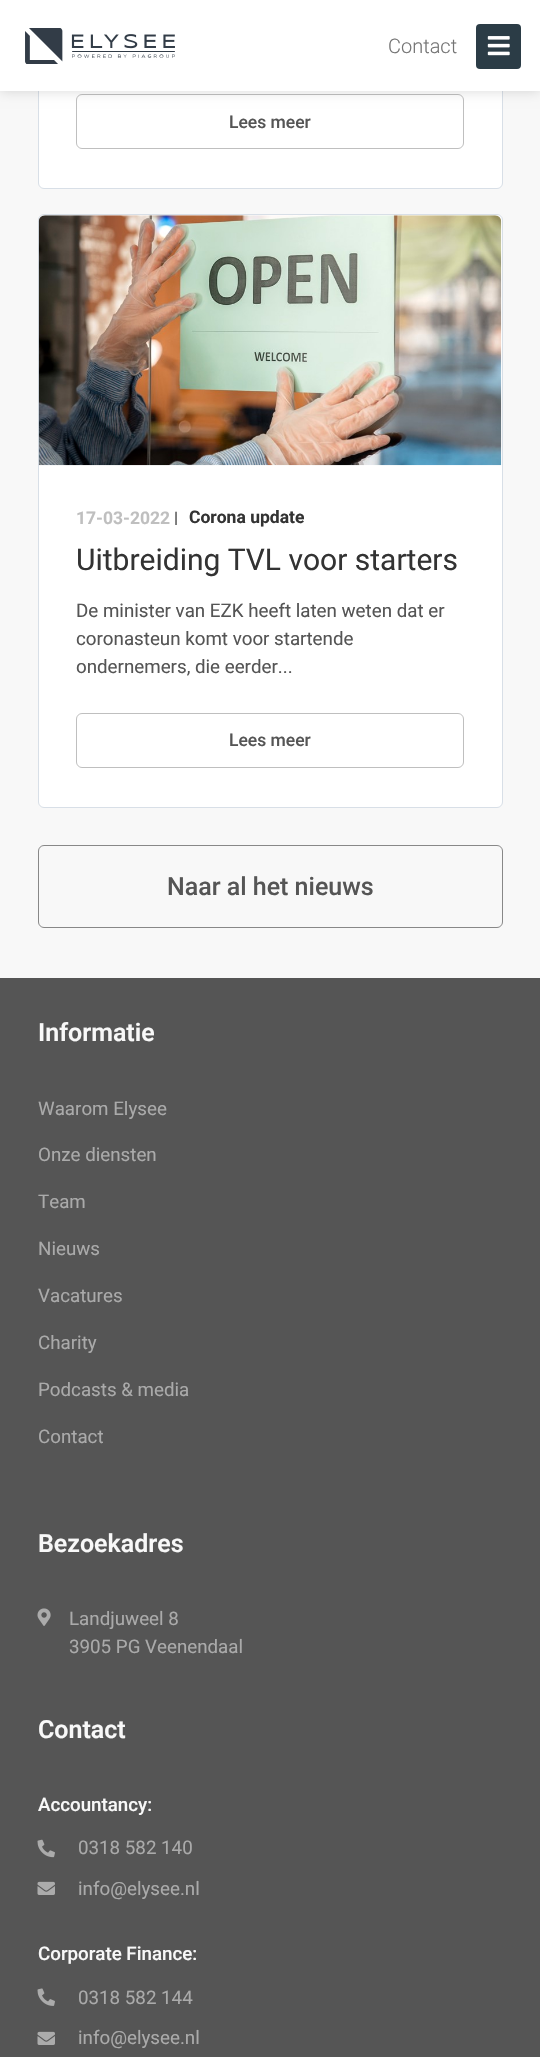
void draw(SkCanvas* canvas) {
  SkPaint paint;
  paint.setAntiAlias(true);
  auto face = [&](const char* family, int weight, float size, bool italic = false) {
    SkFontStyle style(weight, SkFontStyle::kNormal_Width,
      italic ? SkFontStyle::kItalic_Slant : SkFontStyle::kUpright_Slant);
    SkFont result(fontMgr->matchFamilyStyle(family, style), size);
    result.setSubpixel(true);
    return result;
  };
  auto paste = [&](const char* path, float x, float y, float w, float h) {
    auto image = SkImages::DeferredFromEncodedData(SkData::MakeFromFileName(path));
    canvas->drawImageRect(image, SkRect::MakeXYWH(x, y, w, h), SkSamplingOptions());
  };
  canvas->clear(0xfff8f8f8);
  paint.setColor(0xffffffff);
  canvas->drawRoundRect(SkRect::MakeXYWH(38.5f, -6.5f, 464, 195), 5.5f, 5.5f, paint);
  paint.setStroke(true);
  paint.setStrokeWidth(1);
  paint.setColor(0xffd8dfe7);
  canvas->drawRoundRect(SkRect::MakeXYWH(38.5f, -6.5f, 464, 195), 5.5f, 5.5f, paint);
  paint.setColor(0xffbfbfbf);
  canvas->drawRoundRect(SkRect::MakeXYWH(76.5f, 94.5f, 387, 54), 5.5f, 5.5f, paint);
  paint.setStroke(false);
  paint.setColor(0x26000000);
  paint.setMaskFilter(SkMaskFilter::MakeBlur(kNormal_SkBlurStyle, 6));
  canvas->drawRect(SkRect::MakeXYWH(0, 0, 540, 91), paint);
  paint.setMaskFilter(nullptr);
  paint.setColor(0xffffffff);
  canvas->drawRect(SkRect::MakeXYWH(0, 0, 540, 91), paint);
  paste("img/1.png", 25, 28, 150, 36);
  paint.setColor(0xff2b3c46);
  canvas->drawRoundRect(SkRect::MakeXYWH(476, 24, 45, 45), 4, 4, paint);
  paste("img/2.png", 487, 36, 23, 20);
  paint.setColor(0xffffffff);
  canvas->drawRoundRect(SkRect::MakeXYWH(38.5f, 214.5f, 464, 593), 5.5f, 5.5f, paint);
  paint.setStroke(true);
  paint.setColor(0xffd8dfe7);
  canvas->drawRoundRect(SkRect::MakeXYWH(38.5f, 214.5f, 464, 593), 5.5f, 5.5f, paint);
  paste("img/3.png", 38, 215, 464, 251);
  paint.setColor(0xffbfbfbf);
  canvas->drawRoundRect(SkRect::MakeXYWH(76.5f, 713.5f, 387, 54), 5.5f, 5.5f, paint);
  paint.setColor(0xff888888);
  canvas->drawRoundRect(SkRect::MakeXYWH(38.5f, 845.5f, 464, 82), 5.5f, 5.5f, paint);
  paint.setStroke(false);
  paint.setColor(0xff555555);
  canvas->drawRect(SkRect::MakeXYWH(0, 978, 540, 1079), paint);
  paste("img/4.png", 37, 1608, 14, 18);
  paste("img/5.png", 37, 1839, 18, 19);
  paste("img/6.png", 37, 1881, 18, 14);
  paste("img/7.png", 37, 1988, 18, 18);
  paste("img/6.png", 37, 2031, 18, 14);
  auto f0 = face("Roboto", 300, 20);
  paint.setColor(0xff747474);
  canvas->drawString("Contact", 388, 53, f0, paint);
  auto f1 = face("Roboto", 500, 17.5f);
  paint.setColor(0xff555555);
  canvas->drawString("Lees meer", 229, 128, f1, paint);
  auto f2 = face("Roboto", 700, 17.5f);
  paint.setColor(0xffbfbfbf);
  canvas->drawString("17-03-2022", 76, 524, f2, paint);
  auto f3 = face("Roboto", 700, 16);
  paint.setColor(0xff555555);
  canvas->drawString("|", 174, 523, f3, paint);
  paint.setColor(0xff333333);
  canvas->drawString("Corona update", 189, 523, f2, paint);
  auto f4 = face("Roboto", 400, 30);
  canvas->drawString("Uitbreiding TVL voor starters", 76, 570, f4, paint);
  auto f5 = face("Roboto", 400, 18.75f);
  paint.setColor(0xff555555);
  {
    const struct { const char* s; float x, y; } items[] = {
      {"De minister van EZK heeft laten weten dat er", 76, 617},
      {"coronasteun komt voor startende", 76, 645},
      {"ondernemers, die eerder...", 76, 673},
    };
    for (auto [s, x, y] : items) {
      canvas->drawString(s, x, y, f5, paint);
    }
  }
  canvas->drawString("Lees meer", 229, 746, f1, paint);
  auto f6 = face("Roboto", 500, 25);
  canvas->drawString("Naar al het nieuws", 167, 895, f6, paint);
  auto f7 = face("Roboto", 600, 25);
  paint.setColor(0xfff8f8f8);
  canvas->drawString("Informatie", 38, 1041, f7, paint);
  paint.setColor(0xffaaaaaa);
  {
    const struct { const char* s; float x, y; } items[] = {
      {"Waarom Elysee", 38, 1115},
      {"Onze diensten", 38, 1161},
      {"Team", 38, 1208},
      {"Nieuws", 38, 1255},
      {"Vacatures", 38, 1302},
      {"Charity", 38, 1349},
      {"Podcasts & media", 38, 1396},
      {"Contact", 38, 1443},
    };
    for (auto [s, x, y] : items) {
      canvas->drawString(s, x, y, f5, paint);
    }
  }
  paint.setColor(0xfff8f8f8);
  canvas->drawString("Bezoekadres", 38, 1552, f7, paint);
  paint.setColor(0xffaaaaaa);
  canvas->drawString("Landjuweel 8", 69, 1625, f5, paint);
  canvas->drawString("3905 PG Veenendaal", 69, 1653, f5, paint);
  paint.setColor(0xfff8f8f8);
  canvas->drawString("Contact", 38, 1738, f7, paint);
  auto f8 = face("Roboto", 500, 18.75f);
  canvas->drawString("Accountancy:", 38, 1811, f8, paint);
  paint.setColor(0xffaaaaaa);
  canvas->drawString("0318 582 140", 78, 1854, f5, paint);
  canvas->drawString("info@elysee.nl", 78, 1895, f5, paint);
  paint.setColor(0xfff8f8f8);
  canvas->drawString("Corporate Finance:", 38, 1960, f8, paint);
  paint.setColor(0xffaaaaaa);
  canvas->drawString("0318 582 144", 78, 2004, f5, paint);
  canvas->drawString("info@elysee.nl", 78, 2044, f5, paint);
}
